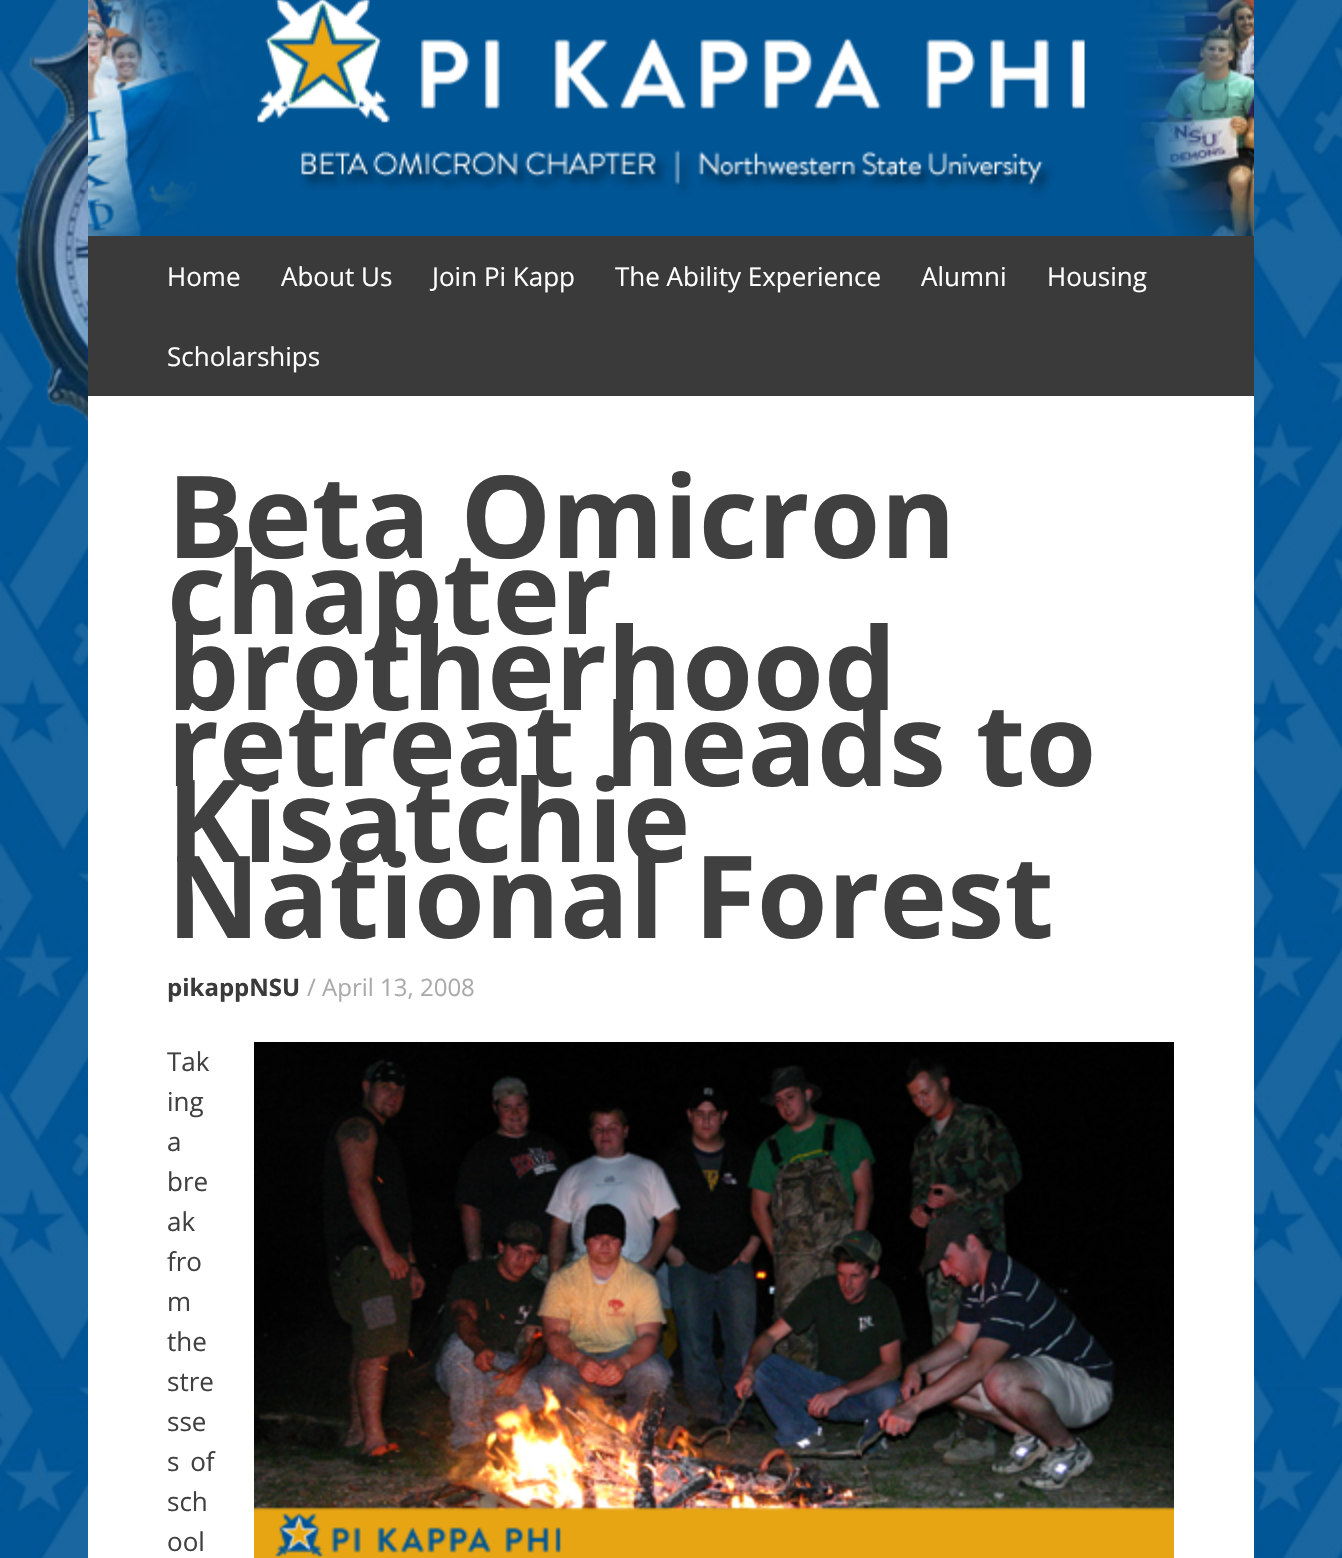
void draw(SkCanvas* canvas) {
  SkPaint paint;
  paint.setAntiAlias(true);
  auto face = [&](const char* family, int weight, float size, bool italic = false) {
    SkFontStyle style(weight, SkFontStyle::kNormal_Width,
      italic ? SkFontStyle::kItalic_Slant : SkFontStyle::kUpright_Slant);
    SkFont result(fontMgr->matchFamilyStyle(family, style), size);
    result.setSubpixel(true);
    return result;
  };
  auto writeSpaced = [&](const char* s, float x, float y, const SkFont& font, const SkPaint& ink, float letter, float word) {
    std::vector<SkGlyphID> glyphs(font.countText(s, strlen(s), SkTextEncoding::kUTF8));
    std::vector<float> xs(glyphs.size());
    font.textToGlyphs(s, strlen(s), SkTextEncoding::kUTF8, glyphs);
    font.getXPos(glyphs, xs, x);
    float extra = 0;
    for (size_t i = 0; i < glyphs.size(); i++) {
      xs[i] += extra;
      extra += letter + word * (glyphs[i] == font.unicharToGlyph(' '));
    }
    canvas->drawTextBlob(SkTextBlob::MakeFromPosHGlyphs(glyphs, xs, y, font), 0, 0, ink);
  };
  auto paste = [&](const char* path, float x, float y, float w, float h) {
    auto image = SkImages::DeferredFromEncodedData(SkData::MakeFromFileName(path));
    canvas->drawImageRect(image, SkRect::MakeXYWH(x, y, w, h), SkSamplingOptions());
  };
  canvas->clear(0xffffffff);
  paste("img/1.png", 0, 0, 1342, 1558);
  paint.setColor(0xffffffff);
  canvas->drawRect(SkRect::MakeXYWH(88, 396, 1166, 1162), paint);
  paste("img/2.png", 88, 0, 1166, 236);
  paint.setColor(0xff3a3a3a);
  canvas->drawRect(SkRect::MakeXYWH(88, 236, 1166, 160), paint);
  paste("img/3.png", 254, 1042, 920, 516);
  auto f0 = face("Open Sans", 400, 26);
  paint.setColor(0xffffffff);
  {
    const struct { const char* s; float x, y; } items[] = {
      {"Home", 167, 286},
      {"About Us", 281, 286},
      {"Join Pi Kapp", 432, 286},
      {"The Ability Experience", 615, 286},
      {"Alumni", 921, 286},
      {"Housing", 1047, 286},
      {"Scholarships", 167, 366},
    };
    for (auto [s, x, y] : items) {
      canvas->drawString(s, x, y, f0, paint);
    }
  }
  auto f1 = face("Open Sans", 700, 114.5f);
  paint.setColor(0xff404040);
  {
    const struct { const char* s; float x, y; } items[] = {
      {"Beta Omicron", 167, 558},
      {"chapter", 167, 634},
      {"brotherhood", 167, 710},
      {"retreat heads to", 167, 786},
      {"Kisatchie", 167, 862},
      {"National Forest", 167, 938},
    };
    for (auto [s, x, y] : items) {
      canvas->drawString(s, x, y, f1, paint);
    }
  }
  auto f2 = face("Open Sans", 700, 24);
  paint.setColor(0xff3a3a3a);
  canvas->drawString("pikappNSU", 167, 996, f2, paint);
  auto f3 = face("Open Sans", 400, 24);
  paint.setColor(0xffaaaaaa);
  canvas->drawString("/ April 13, 2008", 307, 996, f3, paint);
  paint.setColor(0xff404040);
  {
    const struct { const char* s; float x, y; } items[] = {
      {"Tak", 167, 1071},
      {"ing", 167, 1111},
      {"a", 167, 1151},
      {"bre", 167, 1191},
      {"ak", 167, 1231},
      {"fro", 167, 1271},
      {"m", 167, 1311},
      {"the", 167, 1351},
      {"stre", 167, 1391},
      {"sse", 167, 1431},
    };
    for (auto [s, x, y] : items) {
      canvas->drawString(s, x, y, f0, paint);
    }
  }
  writeSpaced("s of", 167, 1471, f0, paint, 0, 4);
  canvas->drawString("sch", 167, 1511, f0, paint);
  canvas->drawString("ool", 167, 1551, f0, paint);
}
